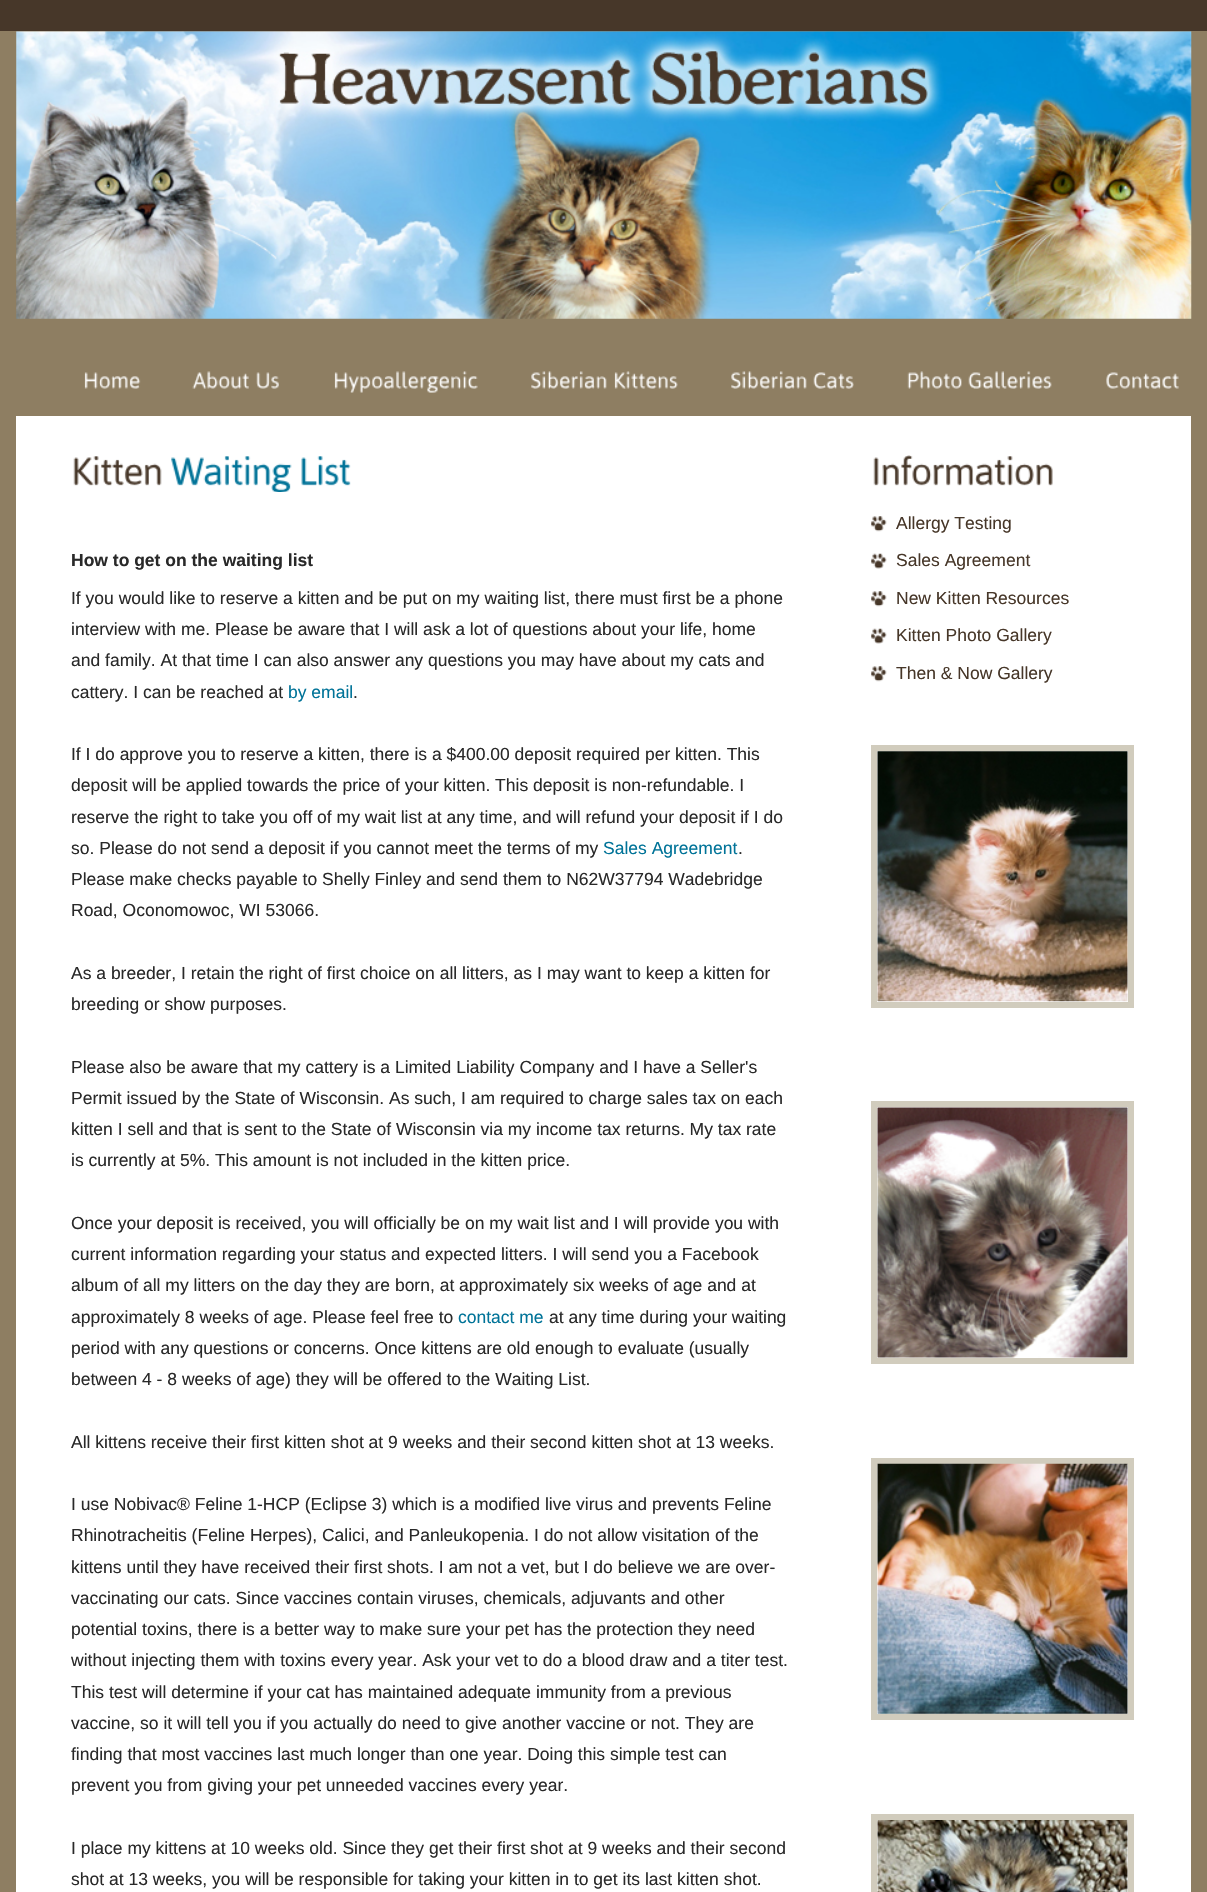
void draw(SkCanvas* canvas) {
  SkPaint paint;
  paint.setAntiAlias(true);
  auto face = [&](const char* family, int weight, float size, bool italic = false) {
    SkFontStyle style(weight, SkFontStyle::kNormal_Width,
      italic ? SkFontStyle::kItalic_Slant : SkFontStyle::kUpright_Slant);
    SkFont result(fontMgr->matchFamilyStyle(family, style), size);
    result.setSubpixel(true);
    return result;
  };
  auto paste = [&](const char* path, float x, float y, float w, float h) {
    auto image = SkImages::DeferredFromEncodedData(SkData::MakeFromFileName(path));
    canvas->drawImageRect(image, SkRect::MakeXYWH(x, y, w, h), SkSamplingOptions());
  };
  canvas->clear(0xff8e7e62);
  paint.setColor(0xff473729);
  canvas->drawRect(SkRect::MakeXYWH(0, 0, 1207, 31), paint);
  paste("img/1.png", 16, 31, 1176, 288);
  paste("img/2.png", 84, 372, 57, 17);
  paste("img/3.png", 192, 371, 57, 18);
  paste("img/4.png", 256, 372, 23, 17);
  paste("img/5.png", 334, 371, 144, 22);
  paste("img/6.png", 531, 371, 76, 18);
  paste("img/7.png", 614, 371, 64, 18);
  paste("img/8.png", 731, 371, 76, 18);
  paste("img/9.png", 813, 372, 41, 17);
  paste("img/10.png", 907, 371, 55, 18);
  paste("img/11.png", 968, 371, 84, 18);
  paste("img/12.png", 1106, 372, 73, 17);
  paint.setColor(0xffffffff);
  canvas->drawRect(SkRect::MakeXYWH(16, 416, 1175, 1476), paint);
  paste("img/13.png", 73, 456, 89, 30);
  paste("img/14.png", 171, 456, 121, 36);
  paste("img/15.png", 301, 456, 50, 30);
  paste("img/16.png", 873, 455, 180, 31);
  paste("img/17.png", 871, 516, 16, 16);
  paste("img/18.png", 871, 553, 16, 16);
  paste("img/17.png", 871, 591, 16, 16);
  paste("img/18.png", 871, 628, 16, 16);
  paste("img/17.png", 871, 666, 16, 16);
  paint.setStroke(true);
  paint.setStrokeWidth(6);
  paint.setColor(0xffd1ccbd);
  canvas->drawRect(SkRect::MakeXYWH(874, 748, 257, 257), paint);
  paste("img/19.png", 877, 751, 251, 251);
  canvas->drawRect(SkRect::MakeXYWH(874, 1104, 257, 257), paint);
  paste("img/20.png", 877, 1107, 251, 251);
  canvas->drawRect(SkRect::MakeXYWH(874, 1461, 257, 256), paint);
  paste("img/21.png", 877, 1463, 251, 251);
  canvas->drawRect(SkRect::MakeXYWH(874, 1817, 257, 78), paint);
  paste("img/22.png", 877, 1820, 251, 72);
  auto f0 = face("Liberation Sans", 700, 17.5f);
  paint.setStroke(false);
  paint.setColor(0xff292929);
  canvas->drawString("How to get on the waiting list", 71, 566, f0, paint);
  auto f1 = face("Liberation Sans", 400, 17.5f);
  {
    const struct { const char* s; float x, y; } items[] = {
      {"If you would like to reserve a kitten and be put on my waiting list, there must first be a phone", 71, 604},
      {"interview with me. Please be aware that I will ask a lot of questions about your life, home", 71, 635},
      {"and family. At that time I can also answer any questions you may have about my cats and", 71, 666},
      {"cattery. I can be reached at", 71, 698},
    };
    for (auto [s, x, y] : items) {
      canvas->drawString(s, x, y, f1, paint);
    }
  }
  paint.setColor(0xff007398);
  canvas->drawString("by email", 288, 698, f1, paint);
  paint.setColor(0xff292929);
  {
    const struct { const char* s; float x, y; } items[] = {
      {".", 353, 698},
      {"If I do approve you to reserve a kitten, there is a $400.00 deposit required per kitten. This", 71, 760},
      {"deposit will be applied towards the price of your kitten. This deposit is non-refundable. I", 71, 791},
      {"reserve the right to take you off of my wait list at any time, and will refund your deposit if I do", 71, 823},
      {"so. Please do not send a deposit if you cannot meet the terms of my", 71, 854},
    };
    for (auto [s, x, y] : items) {
      canvas->drawString(s, x, y, f1, paint);
    }
  }
  paint.setColor(0xff007398);
  canvas->drawString("Sales Agreement", 603, 854, f1, paint);
  paint.setColor(0xff292929);
  {
    const struct { const char* s; float x, y; } items[] = {
      {".", 738, 854},
      {"Please make checks payable to Shelly Finley and send them to N62W37794 Wadebridge", 71, 885},
      {"Road, Oconomowoc, WI 53066.", 71, 916},
      {"As a breeder, I retain the right of first choice on all litters, as I may want to keep a kitten for", 71, 979},
      {"breeding or show purposes.", 71, 1010},
      {"Please also be aware that my cattery is a Limited Liability Company and I have a Seller's", 71, 1073},
      {"Permit issued by the State of Wisconsin. As such, I am required to charge sales tax on each", 71, 1104},
      {"kitten I sell and that is sent to the State of Wisconsin via my income tax returns. My tax rate", 71, 1135},
      {"is currently at 5%. This amount is not included in the kitten price.", 71, 1166},
      {"Once your deposit is received, you will officially be on my wait list and I will provide you with", 71, 1229},
      {"current information regarding your status and expected litters. I will send you a Facebook", 71, 1260},
      {"album of all my litters on the day they are born, at approximately six weeks of age and at", 71, 1291},
      {"approximately 8 weeks of age. Please feel free to", 71, 1323},
    };
    for (auto [s, x, y] : items) {
      canvas->drawString(s, x, y, f1, paint);
    }
  }
  paint.setColor(0xff007398);
  canvas->drawString("contact me", 458, 1323, f1, paint);
  paint.setColor(0xff292929);
  {
    const struct { const char* s; float x, y; } items[] = {
      {"at any time during your waiting", 549, 1323},
      {"period with any questions or concerns. Once kittens are old enough to evaluate (usually", 71, 1354},
      {"between 4 - 8 weeks of age) they will be offered to the Waiting List.", 71, 1385},
      {"All kittens receive their first kitten shot at 9 weeks and their second kitten shot at 13 weeks.", 71, 1448},
      {"I use Nobivac® Feline 1-HCP (Eclipse 3) which is a modified live virus and prevents Feline", 71, 1510},
      {"Rhinotracheitis (Feline Herpes), Calici, and Panleukopenia. I do not allow visitation of the", 71, 1541},
      {"kittens until they have received their first shots. I am not a vet, but I do believe we are over-", 71, 1573},
      {"vaccinating our cats. Since vaccines contain viruses, chemicals, adjuvants and other", 71, 1604},
      {"potential toxins, there is a better way to make sure your pet has the protection they need", 71, 1635},
      {"without injecting them with toxins every year. Ask your vet to do a blood draw and a titer test.", 71, 1666},
      {"This test will determine if your cat has maintained adequate immunity from a previous", 71, 1698},
      {"vaccine, so it will tell you if you actually do need to give another vaccine or not. They are", 71, 1729},
      {"finding that most vaccines last much longer than one year. Doing this simple test can", 71, 1760},
      {"prevent you from giving your pet unneeded vaccines every year.", 71, 1791},
      {"I place my kittens at 10 weeks old. Since they get their first shot at 9 weeks and their second", 71, 1854},
      {"shot at 13 weeks, you will be responsible for taking your kitten in to get its last kitten shot.", 71, 1885},
    };
    for (auto [s, x, y] : items) {
      canvas->drawString(s, x, y, f1, paint);
    }
  }
  paint.setColor(0xff473729);
  {
    const struct { const char* s; float x, y; } items[] = {
      {"Allergy Testing", 896, 529},
      {"Sales Agreement", 896, 566},
      {"New Kitten Resources", 896, 604},
      {"Kitten Photo Gallery", 896, 641},
      {"Then & Now Gallery", 896, 679},
    };
    for (auto [s, x, y] : items) {
      canvas->drawString(s, x, y, f1, paint);
    }
  }
}
